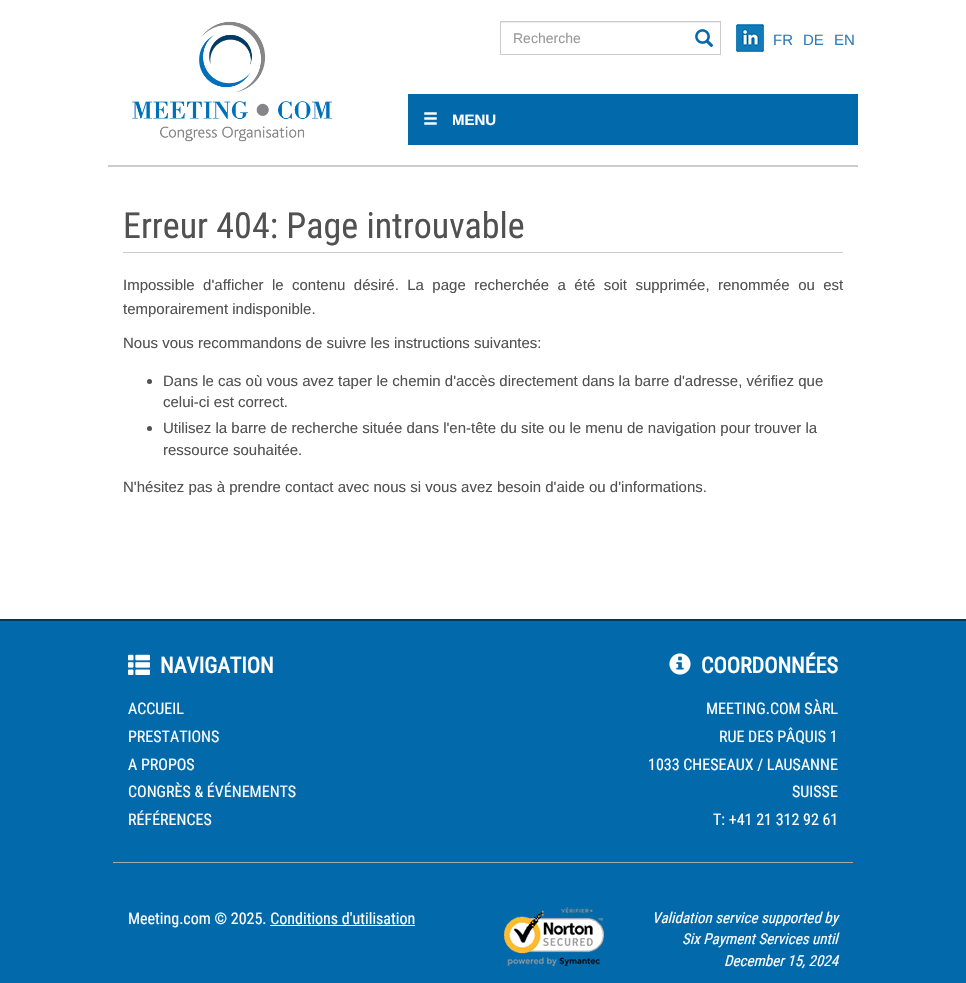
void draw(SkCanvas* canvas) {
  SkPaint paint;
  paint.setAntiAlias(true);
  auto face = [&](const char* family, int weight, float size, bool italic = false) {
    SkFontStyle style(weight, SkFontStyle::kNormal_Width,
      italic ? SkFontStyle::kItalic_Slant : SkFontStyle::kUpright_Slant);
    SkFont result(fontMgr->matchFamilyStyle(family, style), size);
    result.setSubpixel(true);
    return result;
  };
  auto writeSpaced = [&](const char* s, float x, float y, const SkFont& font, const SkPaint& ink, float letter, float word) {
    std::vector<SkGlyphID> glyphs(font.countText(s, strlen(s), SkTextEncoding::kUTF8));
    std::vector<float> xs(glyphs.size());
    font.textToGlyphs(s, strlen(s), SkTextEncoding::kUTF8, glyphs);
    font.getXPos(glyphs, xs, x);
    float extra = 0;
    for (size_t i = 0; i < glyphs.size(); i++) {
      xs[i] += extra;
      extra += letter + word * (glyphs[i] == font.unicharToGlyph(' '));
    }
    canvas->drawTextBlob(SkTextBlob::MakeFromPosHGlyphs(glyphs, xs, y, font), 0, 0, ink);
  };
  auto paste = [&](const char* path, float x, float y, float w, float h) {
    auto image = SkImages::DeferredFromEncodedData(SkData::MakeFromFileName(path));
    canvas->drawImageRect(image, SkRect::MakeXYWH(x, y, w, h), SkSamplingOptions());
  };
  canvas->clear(0xffffffff);
  paint.setColor(0xffcccccc);
  canvas->drawRect(SkRect::MakeXYWH(108, 165, 750, 2), paint);
  paste("img/1.png", 132, 21, 200, 121);
  paint.setColor(0xffececec);
  canvas->drawRect(SkRect::MakeXYWH(501, 22, 219, 1), paint);
  paint.setStroke(true);
  paint.setStrokeWidth(1);
  paint.setColor(0xffcccccc);
  canvas->drawRect(SkRect::MakeXYWH(500.5f, 21.5f, 220, 33), paint);
  paste("img/2.png", 695, 29, 19, 19);
  paste("img/3.png", 736, 24, 28, 28);
  paint.setStroke(false);
  paint.setColor(0xff0269ab);
  canvas->drawRect(SkRect::MakeXYWH(408, 94, 450, 51), paint);
  paste("img/4.png", 424, 112, 13, 13);
  paint.setColor(0xffcccccc);
  canvas->drawRect(SkRect::MakeXYWH(123, 252, 720, 1), paint);
  paint.setColor(0xff515151);
  canvas->drawCircle(149.5f, 381.5f, 2.5f, paint);
  canvas->drawCircle(149.5f, 428.5f, 2.5f, paint);
  {
    const struct { float x, y, w, h; SkColor color; } items[] = {
      {0, 621, 966, 362, 0xff0269ab},
      {0, 619, 966, 2, 0xff00385d},
      {113, 862, 740, 1, 0xffaaaaaa},
    };
    for (auto [x, y, w, h, color] : items) {
      paint.setColor(color);
      canvas->drawRect(SkRect::MakeXYWH(x, y, w, h), paint);
    }
  }
  paste("img/5.png", 128, 654, 22, 21);
  paste("img/6.png", 669, 653, 22, 22);
  paint.setColor(0xffffffff);
  canvas->drawRect(SkRect::MakeXYWH(270, 925, 145, 1), paint);
  paste("img/7.png", 504, 907, 100, 59);
  auto f0 = face("Liberation Sans", 400, 14);
  paint.setColor(0xff999999);
  canvas->drawString("Recherche", 513, 43, f0, paint);
  auto f1 = face("Liberation Sans", 400, 15);
  paint.setColor(0xff337ab7);
  {
    const struct { const char* s; float x, y; } items[] = {
      {"FR", 773, 45},
      {"DE", 803, 45},
      {"EN", 834, 45},
    };
    for (auto [s, x, y] : items) {
      canvas->drawString(s, x, y, f1, paint);
    }
  }
  auto f2 = face("Liberation Sans", 700, 15);
  paint.setColor(0xffffffff);
  canvas->drawString("MENU", 452, 125, f2, paint);
  auto f3 = face("Roboto Condensed", 400, 36);
  paint.setColor(0xff515151);
  canvas->drawString("Erreur 404: Page introuvable", 123, 238, f3, paint);
  writeSpaced("Impossible d'afficher le contenu désiré. La page recherchée a été soit supprimée, renommée ou est", 123, 290, f1, paint, 0, 4.25f);
  {
    const struct { const char* s; float x, y; } items[] = {
      {"temporairement indisponible.", 123, 314},
      {"Nous vous recommandons de suivre les instructions suivantes:", 123, 348},
      {"Dans le cas où vous avez taper le chemin d'accès directement dans la barre d'adresse, vérifiez que", 163, 386},
      {"celui-ci est correct.", 163, 407},
      {"Utilisez la barre de recherche située dans l'en-tête du site ou le menu de navigation pour trouver la", 163, 433},
      {"ressource souhaitée.", 163, 455},
      {"N'hésitez pas à prendre contact avec nous si vous avez besoin d'aide ou d'informations.", 123, 492},
    };
    for (auto [s, x, y] : items) {
      canvas->drawString(s, x, y, f1, paint);
    }
  }
  auto f4 = face("Roboto Condensed", 700, 22);
  paint.setColor(0xffffffff);
  canvas->drawString("NAVIGATION", 160, 673, f4, paint);
  auto f5 = face("Roboto Condensed", 400, 16);
  {
    const struct { const char* s; float x, y; } items[] = {
      {"ACCUEIL", 128, 714},
      {"PRESTATIONS", 128, 742},
      {"A PROPOS", 128, 770},
      {"CONGRÈS & ÉVÉNEMENTS", 128, 797},
      {"RÉFÉRENCES", 128, 825},
    };
    for (auto [s, x, y] : items) {
      canvas->drawString(s, x, y, f5, paint);
    }
  }
  canvas->drawString("COORDONNÉES", 701, 673, f4, paint);
  {
    const struct { const char* s; float x, y; } items[] = {
      {"MEETING.COM SÀRL", 706, 714},
      {"RUE DES PÂQUIS 1", 719, 742},
      {"1033 CHESEAUX / LAUSANNE", 648, 770},
      {"SUISSE", 792, 797},
      {"T: +41 21 312 92 61", 713, 825},
      {"Meeting.com © 2025. Conditions d'utilisation", 128, 924},
    };
    for (auto [s, x, y] : items) {
      canvas->drawString(s, x, y, f5, paint);
    }
  }
  auto f6 = face("Roboto Condensed", 400, 15, true);
  {
    const struct { const char* s; float x, y; } items[] = {
      {"Validation service supported by", 652, 923},
      {"Six Payment Services until", 682, 944},
      {"December 15, 2024", 724, 966},
    };
    for (auto [s, x, y] : items) {
      canvas->drawString(s, x, y, f6, paint);
    }
  }
}
